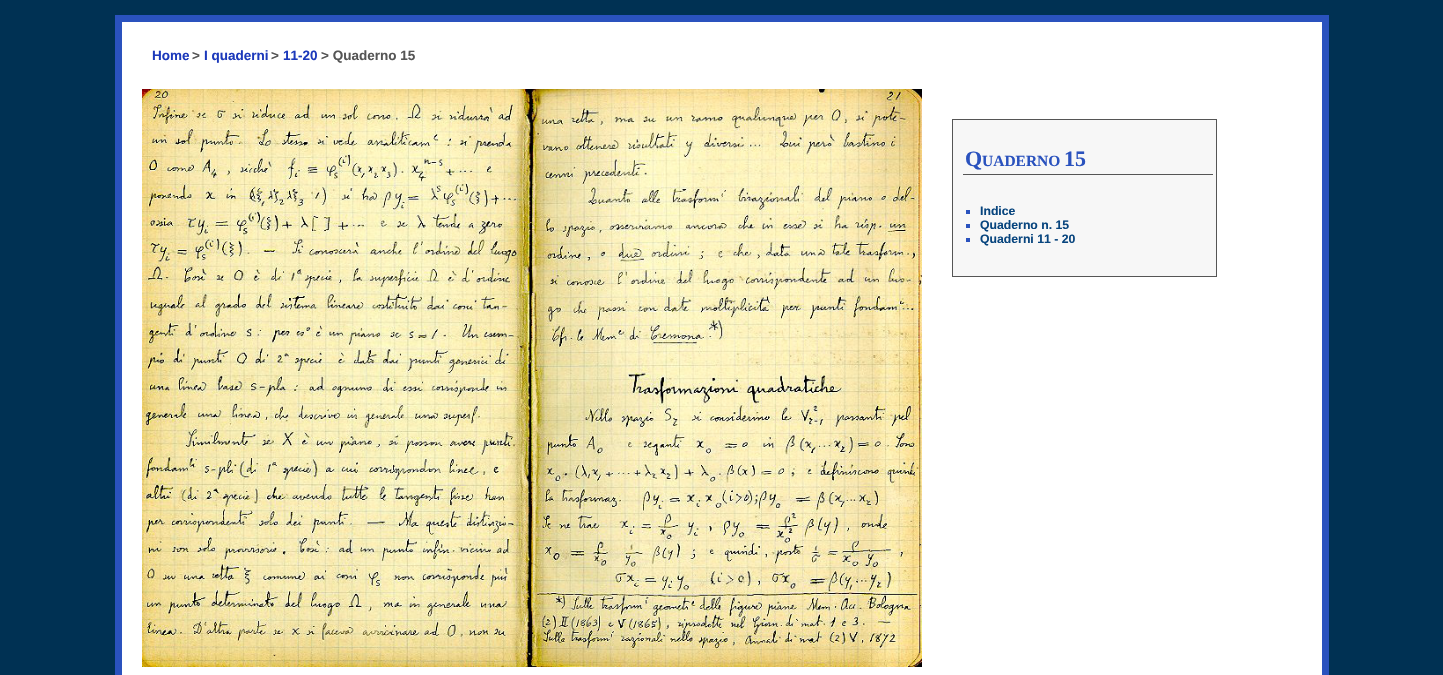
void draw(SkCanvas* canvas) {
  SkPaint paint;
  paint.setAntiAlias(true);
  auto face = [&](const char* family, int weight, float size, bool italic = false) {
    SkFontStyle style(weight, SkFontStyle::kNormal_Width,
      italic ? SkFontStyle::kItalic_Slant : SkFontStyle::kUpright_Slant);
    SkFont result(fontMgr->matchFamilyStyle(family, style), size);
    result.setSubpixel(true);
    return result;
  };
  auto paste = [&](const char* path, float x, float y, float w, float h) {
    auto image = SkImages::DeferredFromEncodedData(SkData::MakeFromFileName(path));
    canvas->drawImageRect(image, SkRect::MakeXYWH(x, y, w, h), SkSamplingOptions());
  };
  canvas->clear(0xff003153);
  paint.setColor(0xffffffff);
  canvas->drawRect(SkRect::MakeXYWH(118.5f, 18.5f, 1207, 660), paint);
  paint.setStroke(true);
  paint.setStrokeWidth(7);
  paint.setColor(0xff2a52be);
  canvas->drawRect(SkRect::MakeXYWH(118.5f, 18.5f, 1207, 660), paint);
  paste("img/1.png", 142, 89, 780, 578);
  paint.setStroke(false);
  paint.setColor(0xfff7f7f7);
  canvas->drawRect(SkRect::MakeXYWH(952.5f, 119.5f, 264, 157), paint);
  paint.setStroke(true);
  paint.setStrokeWidth(1);
  paint.setColor(0xff555555);
  canvas->drawRect(SkRect::MakeXYWH(952.5f, 119.5f, 264, 157), paint);
  paint.setStroke(false);
  {
    const struct { float x, y, w, h; SkColor color; } items[] = {
      {963, 174, 250, 1, 0xff555555},
      {966, 210, 4, 4, 0xff2a52be},
      {966, 224, 4, 4, 0xff2a52be},
      {966, 238, 4, 4, 0xff2a52be},
    };
    for (auto [x, y, w, h, color] : items) {
      paint.setColor(color);
      canvas->drawRect(SkRect::MakeXYWH(x, y, w, h), paint);
    }
  }
  auto f0 = face("Liberation Sans", 700, 13.5f);
  paint.setColor(0xff1c39bb);
  canvas->drawString("Home", 152, 60, f0, paint);
  paint.setColor(0xff555555);
  canvas->drawString(">", 192, 60, f0, paint);
  paint.setColor(0xff1c39bb);
  canvas->drawString("I quaderni", 204, 60, f0, paint);
  paint.setColor(0xff555555);
  canvas->drawString(">", 271, 60, f0, paint);
  paint.setColor(0xff1c39bb);
  canvas->drawString("11-20", 283, 60, f0, paint);
  paint.setColor(0xff555555);
  canvas->drawString("> Quaderno 15", 321, 60, f0, paint);
  auto f1 = face("Liberation Serif", 700, 22);
  paint.setColor(0xff2a52be);
  canvas->drawString("Q", 965, 166, f1, paint);
  auto f2 = face("Liberation Serif", 700, 15.5f);
  canvas->drawString("UADERNO", 982, 166, f2, paint);
  canvas->drawString("15", 1064, 166, f1, paint);
  auto f3 = face("Liberation Sans", 700, 12.25f);
  paint.setColor(0xff08457e);
  {
    const struct { const char* s; float x, y; } items[] = {
      {"Indice", 980, 215},
      {"Quaderno n. 15", 980, 229},
      {"Quaderni 11 - 20", 980, 243},
    };
    for (auto [s, x, y] : items) {
      canvas->drawString(s, x, y, f3, paint);
    }
  }
}
